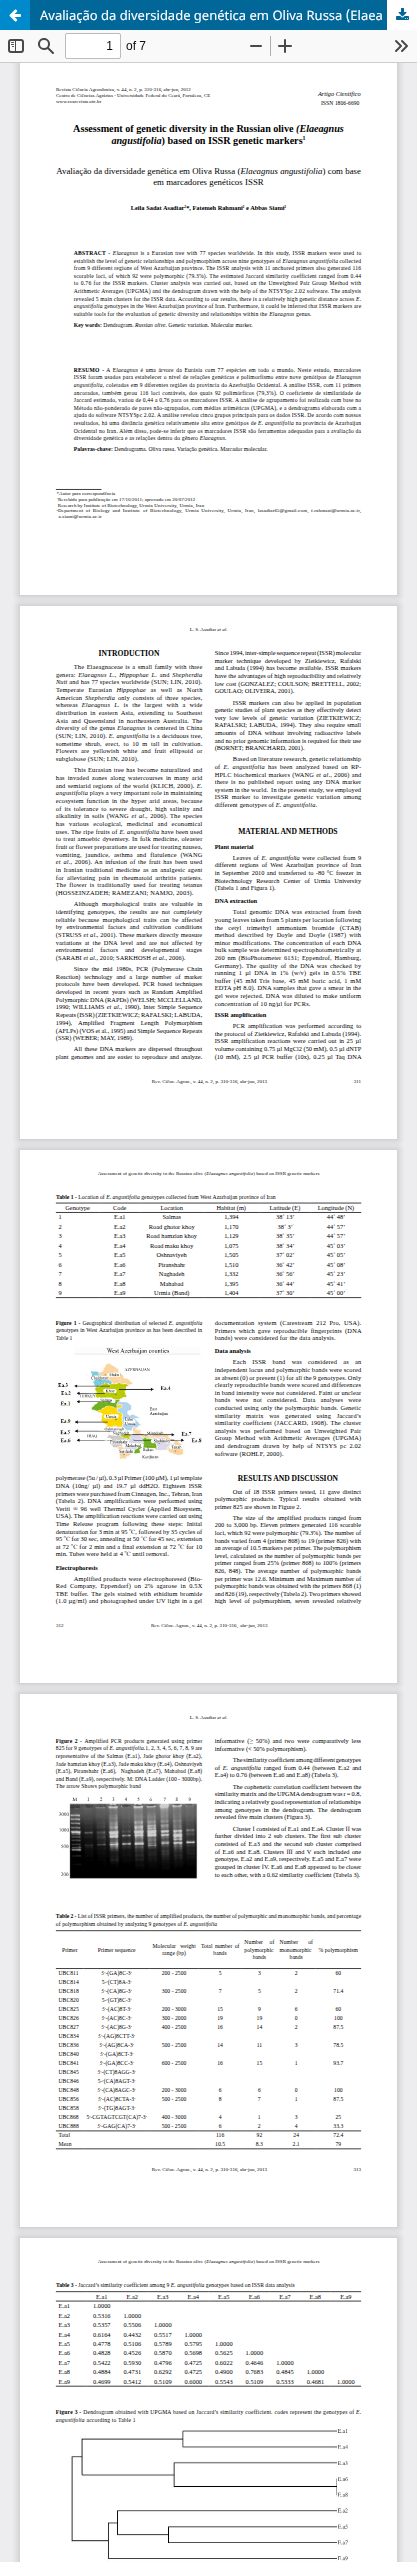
void draw(SkCanvas* canvas) {
  SkPaint paint;
  paint.setAntiAlias(true);
  auto face = [&](const char* family, int weight, float size, bool italic = false) {
    SkFontStyle style(weight, SkFontStyle::kNormal_Width,
      italic ? SkFontStyle::kItalic_Slant : SkFontStyle::kUpright_Slant);
    SkFont result(fontMgr->matchFamilyStyle(family, style), size);
    result.setSubpixel(true);
    return result;
  };
  auto paste = [&](const char* path, float x, float y, float w, float h) {
    auto image = SkImages::DeferredFromEncodedData(SkData::MakeFromFileName(path));
    canvas->drawImageRect(image, SkRect::MakeXYWH(x, y, w, h), SkSamplingOptions());
  };
  canvas->clear(0xffffffff);
  paint.setColor(0xff006798);
  canvas->drawRect(SkRect::MakeXYWH(30, 0, 357, 30), paint);
  paint.setColor(0xff008acb);
  canvas->drawRect(SkRect::MakeXYWH(0, 0, 30, 30), paint);
  paste("img/1.png", 9, 9, 12, 13);
  paste("img/2.png", 396, 8, 13, 12);
  paste("img/3.png", 0, 30, 417, 2532);
  auto f0 = face("Noto Sans", 400, 13);
  paint.setColor(0xffffffff);
  canvas->drawString("Avaliação da diversidade genética em Oliva Russa (Elaea", 40, 20, f0, paint);
}
